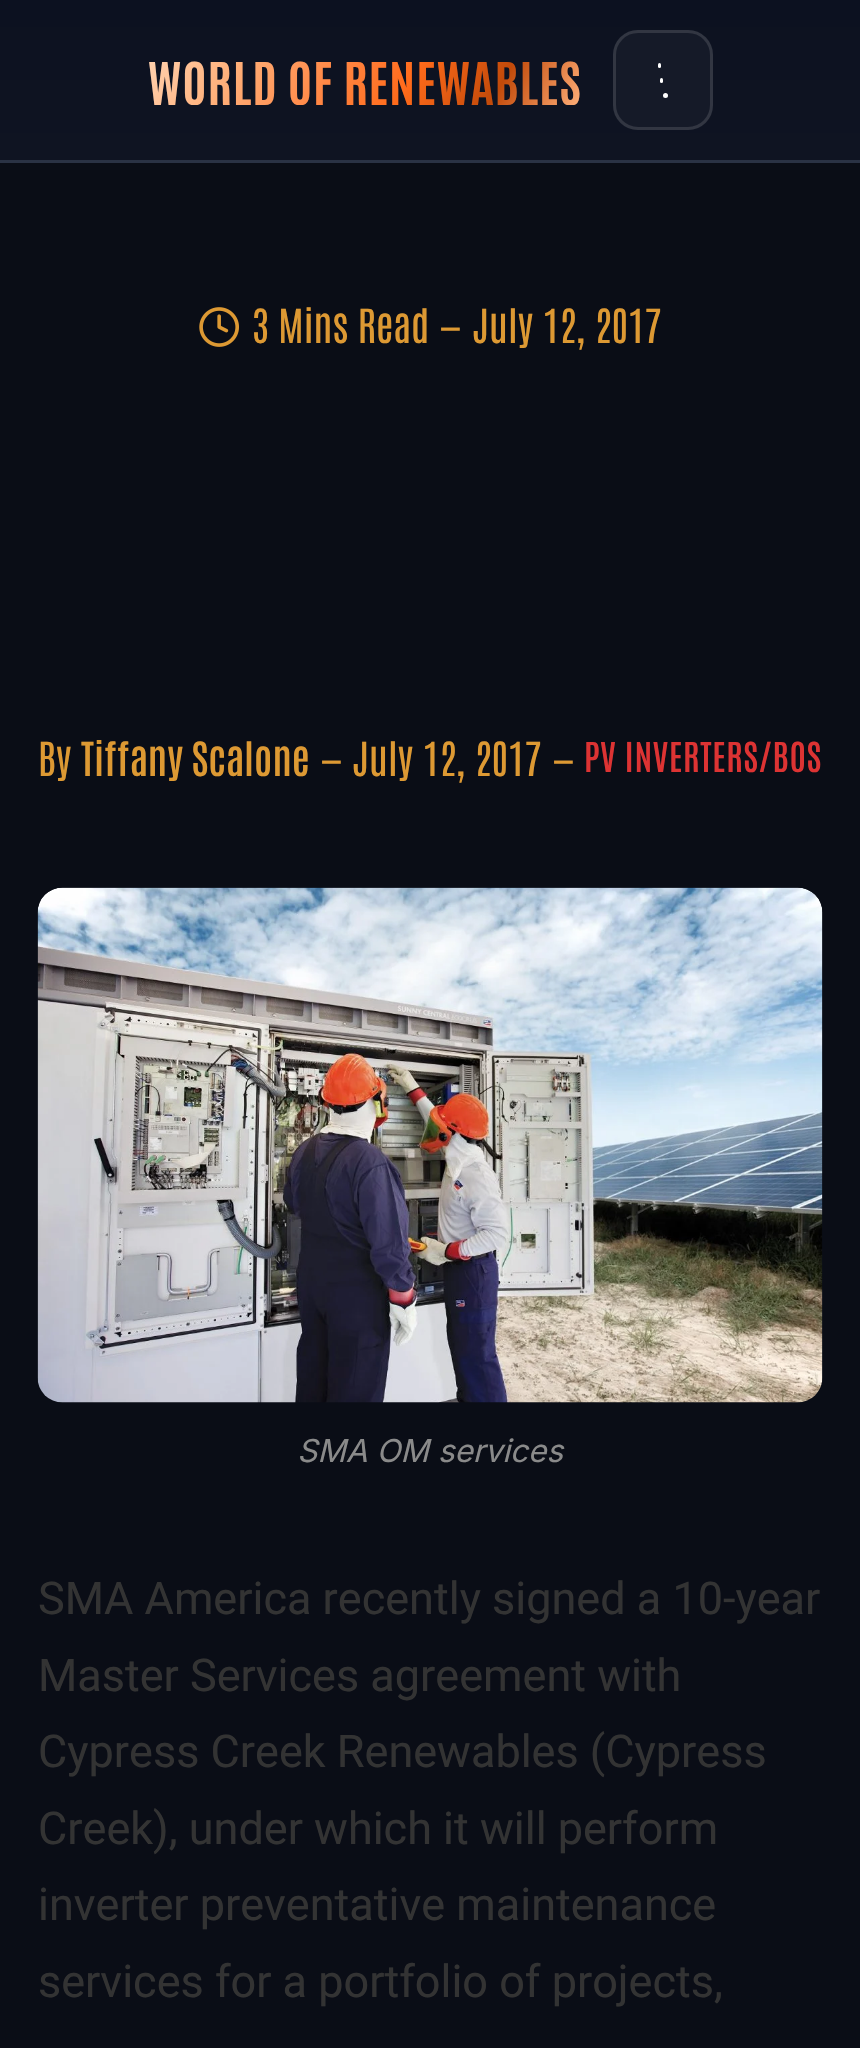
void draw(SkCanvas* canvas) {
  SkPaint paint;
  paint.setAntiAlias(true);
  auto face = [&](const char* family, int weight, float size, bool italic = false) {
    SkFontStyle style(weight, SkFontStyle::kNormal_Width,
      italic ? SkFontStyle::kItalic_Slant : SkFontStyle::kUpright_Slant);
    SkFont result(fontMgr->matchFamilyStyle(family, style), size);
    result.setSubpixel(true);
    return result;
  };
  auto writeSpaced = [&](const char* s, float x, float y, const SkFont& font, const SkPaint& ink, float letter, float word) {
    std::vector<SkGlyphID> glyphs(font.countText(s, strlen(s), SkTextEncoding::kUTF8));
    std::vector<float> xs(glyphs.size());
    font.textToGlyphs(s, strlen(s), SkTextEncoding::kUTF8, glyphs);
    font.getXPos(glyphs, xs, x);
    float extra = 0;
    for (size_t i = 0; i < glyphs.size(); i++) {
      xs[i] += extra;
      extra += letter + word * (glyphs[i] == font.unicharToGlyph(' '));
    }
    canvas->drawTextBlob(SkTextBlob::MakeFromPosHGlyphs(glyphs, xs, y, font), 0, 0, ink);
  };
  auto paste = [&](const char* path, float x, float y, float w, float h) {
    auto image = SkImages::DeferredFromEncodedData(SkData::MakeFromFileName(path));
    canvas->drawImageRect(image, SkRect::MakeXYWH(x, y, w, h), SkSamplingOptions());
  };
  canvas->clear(0xff0a0d16);
  paint.setColor(0xff2a3244);
  canvas->drawRect(SkRect::MakeXYWH(0, 160, 860, 3), paint);
  {
    const SkColor colors[] = {0xff0c1120, 0xff0f1422};
    const float stops[] = {0, 1};
    const SkPoint ends[] = {{430, 0}, {430, 160}};
    paint.setShader(SkGradientShader::MakeLinear(ends, colors, stops, 2, SkTileMode::kClamp));
    paint.setAlpha(255);
  }
  canvas->drawRect(SkRect::MakeXYWH(0, 0, 860, 160), paint);
  paint.setShader(nullptr);
  paint.setColor(0xff151a28);
  canvas->drawRoundRect(SkRect::MakeXYWH(613, 30, 100, 100), 25, 25, paint);
  paint.setStroke(true);
  paint.setStrokeWidth(3);
  paint.setColor(0x1fffffff);
  canvas->drawRoundRect(SkRect::MakeXYWH(614.5f, 31.5f, 97, 97), 23.5f, 23.5f, paint);
  paint.setStroke(false);
  paint.setColor(0xffffffff);
  canvas->drawRoundRect(SkRect::MakeXYWH(658, 63, 3, 5), 1.5f, 1.5f, paint);
  canvas->drawRoundRect(SkRect::MakeXYWH(660, 78, 3, 5), 1.5f, 1.5f, paint);
  canvas->drawCircle(665.5f, 95.5f, 2.5f, paint);
  paste("img/1.png", 199, 307, 40, 40);
  paste("img/2.png", 37, 887, 786, 516);
  canvas->save();
  canvas->clipRect(SkRect::MakeXYWH(148, 55, 435, 50));
  auto f0 = face("Antonio", 700, 50);
  {
    const SkColor colors[] = {0xffffd2b0, 0xffffb07a, 0xffff8b4a, 0xffff6a1a, 0xffc24a0a, 0xffffb07a};
    const float stops[] = {0, 0.2f, 0.4f, 0.6f, 0.8f, 1};
    const SkPoint ends[] = {{191, -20}, {539, 180}};
    paint.setShader(SkGradientShader::MakeLinear(ends, colors, stops, 6, SkTileMode::kClamp));
    paint.setAlpha(255);
  }
  writeSpaced("WORLD OF RENEWABLES", 148, 105, f0, paint, 1, 0);
  canvas->restore();
  auto f1 = face("Antonio", 400, 40);
  paint.setShader(nullptr);
  paint.setColor(0xffdd9933);
  canvas->drawString("3 Mins Read", 252, 343, f1, paint);
  auto f2 = face("Antonio", 400, 37);
  canvas->drawString("—", 440, 341, f2, paint);
  canvas->drawString("July 12, 2017", 472, 343, f1, paint);
  canvas->drawString("By", 38, 776, f1, paint);
  auto f3 = face("Antonio", 600, 40);
  canvas->drawString("Tiffany Scalone", 81, 776, f3, paint);
  canvas->drawString("—", 321, 774, f2, paint);
  canvas->drawString("July 12, 2017", 352, 776, f1, paint);
  canvas->drawString("—", 553, 774, f2, paint);
  auto f4 = face("Antonio", 600, 35);
  paint.setColor(0xffdd3333);
  writeSpaced("PV INVERTERS/BOS", 584, 772, f4, paint, 0.75f, 0);
  auto f5 = face("Inter", 400, 31.5f, true);
  paint.setColor(0xff8a8a8a);
  canvas->drawString("SMA OM services", 297, 1462, f5, paint);
  auto f6 = face("Roboto", 400, 45);
  paint.setColor(0xff333333);
  {
    const struct { const char* s; float x, y; } items[] = {
      {"SMA America recently signed a 10-year", 38, 1614},
      {"Master Services agreement with", 38, 1691},
      {"Cypress Creek Renewables (Cypress", 38, 1767},
      {"Creek), under which it will perform", 38, 1844},
      {"inverter preventative maintenance", 38, 1920},
      {"services for a portfolio of projects,", 38, 1997},
    };
    for (auto [s, x, y] : items) {
      canvas->drawString(s, x, y, f6, paint);
    }
  }
}
